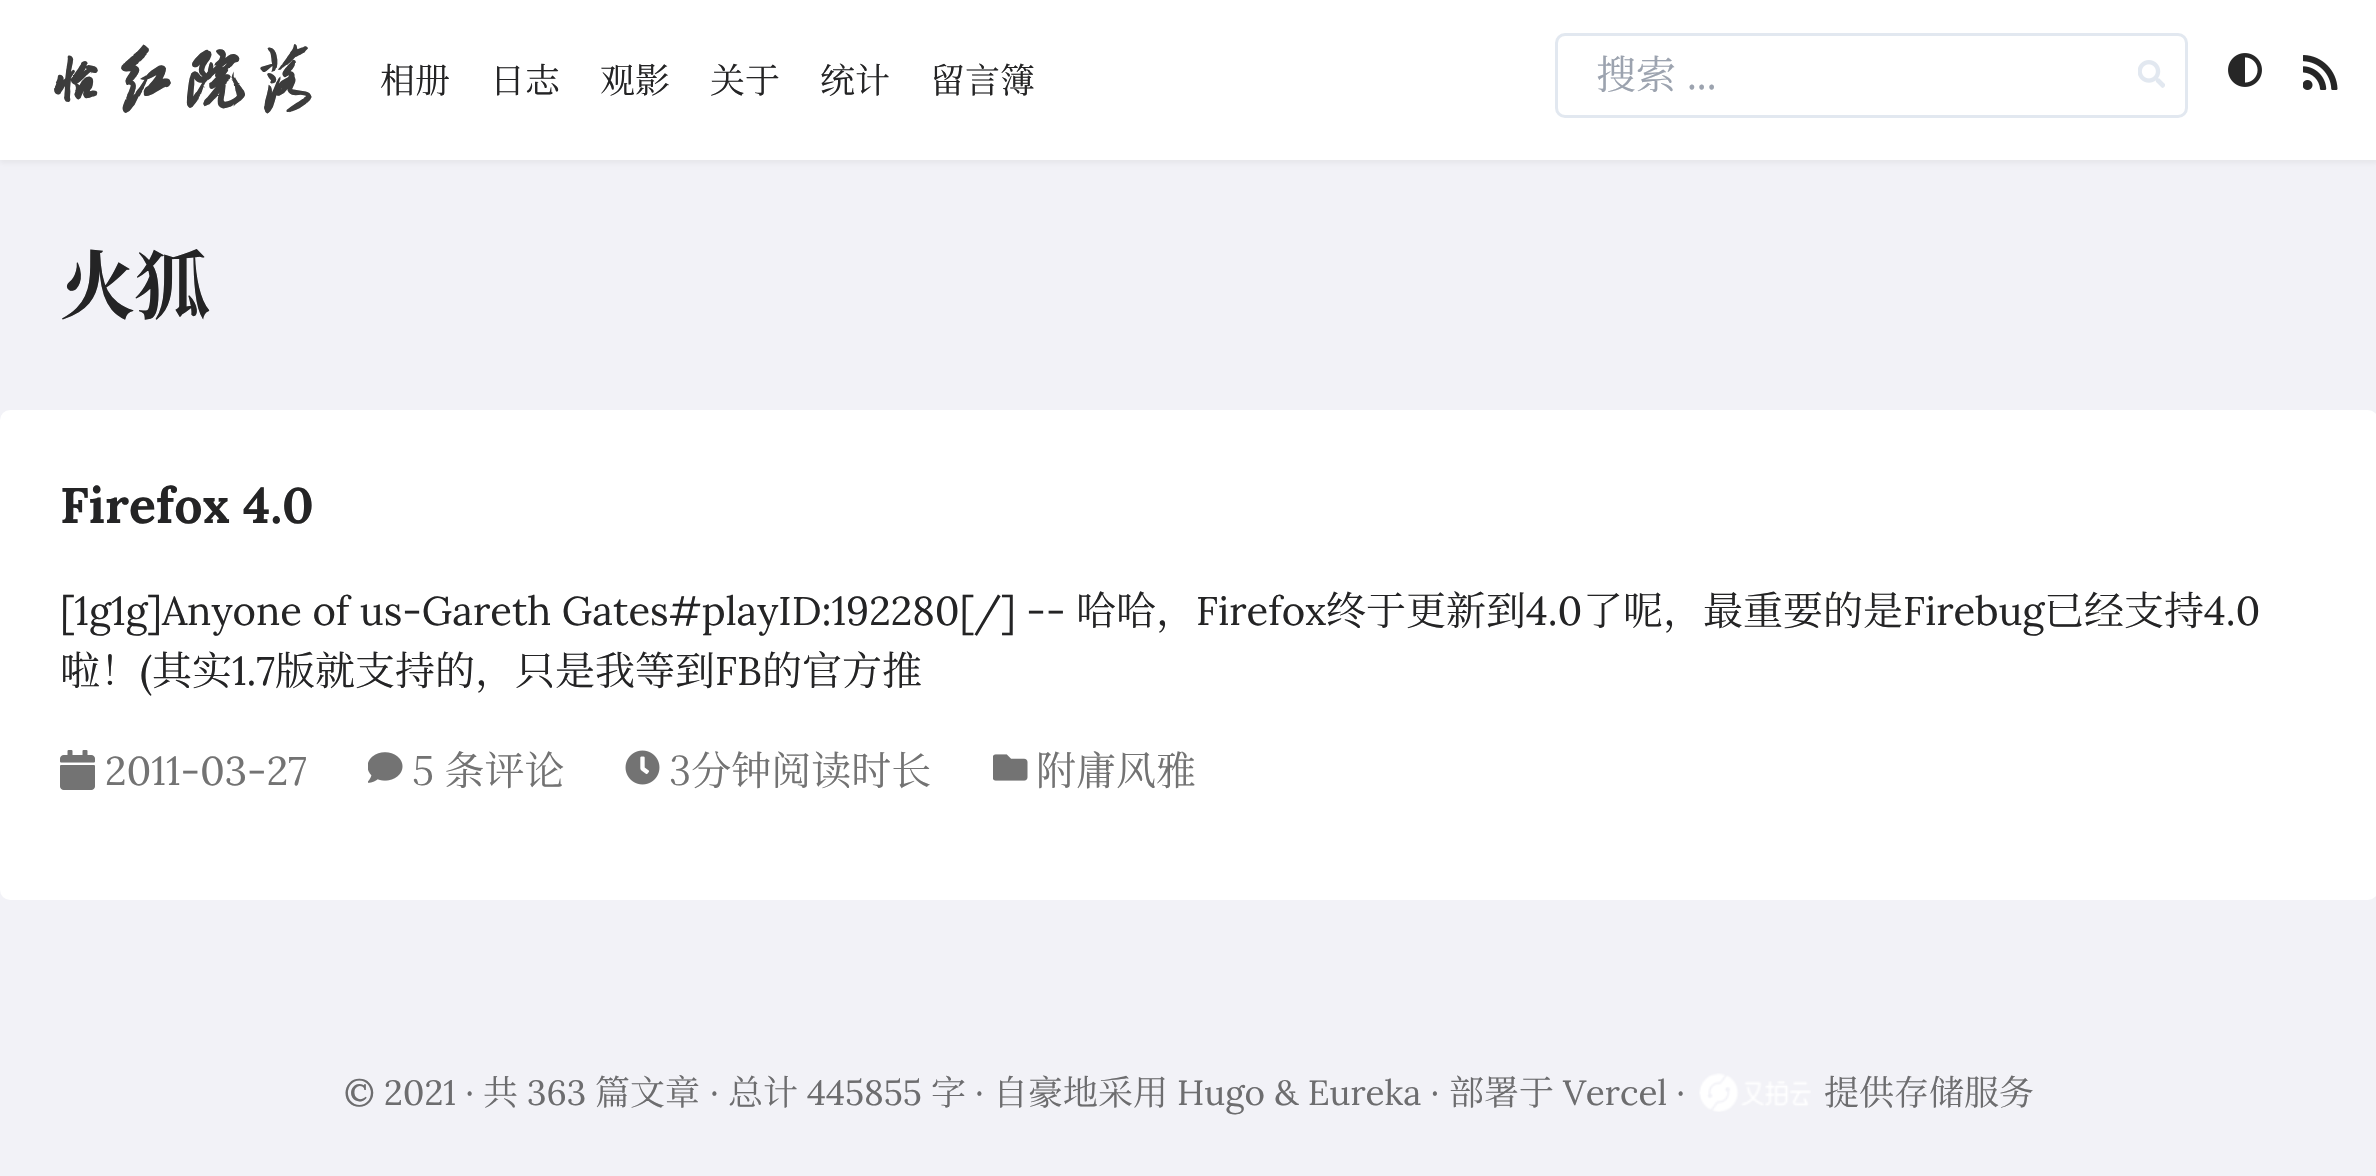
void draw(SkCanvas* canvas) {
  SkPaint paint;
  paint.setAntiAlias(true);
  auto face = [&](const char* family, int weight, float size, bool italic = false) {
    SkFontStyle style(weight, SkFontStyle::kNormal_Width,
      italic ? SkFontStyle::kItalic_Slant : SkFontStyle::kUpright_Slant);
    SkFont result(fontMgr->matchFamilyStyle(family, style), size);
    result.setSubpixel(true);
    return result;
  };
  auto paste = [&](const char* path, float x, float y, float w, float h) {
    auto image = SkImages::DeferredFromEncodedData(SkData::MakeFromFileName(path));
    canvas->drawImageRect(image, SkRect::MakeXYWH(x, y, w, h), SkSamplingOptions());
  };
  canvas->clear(0xfff2f2f7);
  paint.setColor(0x0d000000);
  paint.setMaskFilter(SkMaskFilter::MakeBlur(kNormal_SkBlurStyle, 2.5f));
  canvas->drawRect(SkRect::MakeXYWH(0, 3, 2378, 160), paint);
  paint.setMaskFilter(nullptr);
  paint.setColor(0xffffffff);
  canvas->drawRect(SkRect::MakeXYWH(0, 0, 2376, 160), paint);
  paint.setStroke(true);
  paint.setStrokeWidth(3);
  paint.setColor(0xffe2e8f0);
  canvas->drawRoundRect(SkRect::MakeXYWH(1556.5f, 34.5f, 630, 82), 8.5f, 8.5f, paint);
  paste("img/1.png", 2138, 60, 27, 28);
  paste("img/2.png", 2228, 53, 34, 34);
  paste("img/3.png", 2303, 55, 35, 35);
  paint.setStroke(false);
  paint.setColor(0xffffffff);
  canvas->drawRoundRect(SkRect::MakeXYWH(0, 410, 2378, 490), 10, 10, paint);
  paste("img/4.png", 60, 750, 35, 40);
  paste("img/5.png", 368, 752, 35, 31);
  paste("img/6.png", 625, 750, 35, 35);
  paste("img/7.png", 993, 754, 35, 27);
  paste("img/8.png", 1699, 1073, 112, 39);
  auto f0 = face("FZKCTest", 700, 70);
  paint.setColor(0xff3c3c3c);
  canvas->drawString("怡红院落", 40, 105, f0, paint);
  auto f1 = face("Noto Serif SC", 400, 35);
  paint.setColor(0xff242425);
  {
    const struct { const char* s; float x, y; } items[] = {
      {"相册", 380, 93},
      {"日志", 490, 93},
      {"观影", 600, 93},
      {"关于", 710, 93},
      {"统计", 820, 93},
      {"留言簿", 930, 93},
    };
    for (auto [s, x, y] : items) {
      canvas->drawString(s, x, y, f1, paint);
    }
  }
  auto f2 = face("Noto Serif SC", 400, 40);
  paint.setColor(0xff9ca3af);
  canvas->drawString("搜索", 1596, 89, f2, paint);
  auto f3 = face("Lora", 400, 40);
  canvas->drawString("...", 1687, 89, f3, paint);
  auto f4 = face("Noto Serif SC", 700, 75);
  paint.setColor(0xff242425);
  canvas->drawString("火狐", 60, 313, f4, paint);
  auto f5 = face("Lora", 700, 50);
  canvas->drawString("Firefox 4.0", 60, 523, f5, paint);
  canvas->drawString("[1g1g]Anyone of us-Gareth Gates#playID:192280[/] --", 60, 625, f3, paint);
  canvas->drawString("哈哈，", 1076, 625, f2, paint);
  canvas->drawString("Firefox", 1196, 625, f3, paint);
  canvas->drawString("终于更新到", 1326, 625, f2, paint);
  canvas->drawString("4.0", 1526, 625, f3, paint);
  canvas->drawString("了呢，最重要的是", 1583, 625, f2, paint);
  canvas->drawString("Firebug", 1903, 625, f3, paint);
  canvas->drawString("已经支持", 2044, 625, f2, paint);
  canvas->drawString("4.0", 2204, 625, f3, paint);
  canvas->drawString("啦！", 60, 685, f2, paint);
  canvas->drawString("(", 140, 685, f3, paint);
  canvas->drawString("其实", 152, 685, f2, paint);
  canvas->drawString("1.7", 232, 685, f3, paint);
  canvas->drawString("版就支持的，只是我等到", 275, 685, f2, paint);
  canvas->drawString("FB", 715, 685, f3, paint);
  canvas->drawString("的官方推", 762, 685, f2, paint);
  paint.setColor(0xff737373);
  canvas->drawString("2011-03-27", 105, 785, f3, paint);
  {
    const struct { const char* s; float x, y; } items[] = {
      {"5 条评论", 412, 785},
      {"3分钟阅读时长", 669, 785},
      {"附庸风雅", 1036, 785},
    };
    for (auto [s, x, y] : items) {
      canvas->drawString(s, x, y, f2, paint);
    }
  }
  auto f6 = face("Lora", 400, 35);
  paint.setColor(0xff6d6d6f);
  canvas->drawString("© 2021 ·", 344, 1105, f6, paint);
  canvas->drawString("共", 483, 1105, f1, paint);
  canvas->drawString("363", 527, 1105, f6, paint);
  canvas->drawString("篇文章", 595, 1105, f1, paint);
  canvas->drawString("·", 710, 1105, f6, paint);
  canvas->drawString("总计", 728, 1105, f1, paint);
  canvas->drawString("445855", 807, 1105, f6, paint);
  canvas->drawString("字", 931, 1105, f1, paint);
  canvas->drawString("·", 975, 1105, f6, paint);
  canvas->drawString("自豪地采用", 993, 1105, f1, paint);
  canvas->drawString("Hugo & Eureka ·", 1177, 1105, f6, paint);
  canvas->drawString("部署于", 1449, 1105, f1, paint);
  canvas->drawString("Vercel ·", 1563, 1105, f6, paint);
  canvas->drawString("提供存储服务", 1824, 1105, f1, paint);
}
